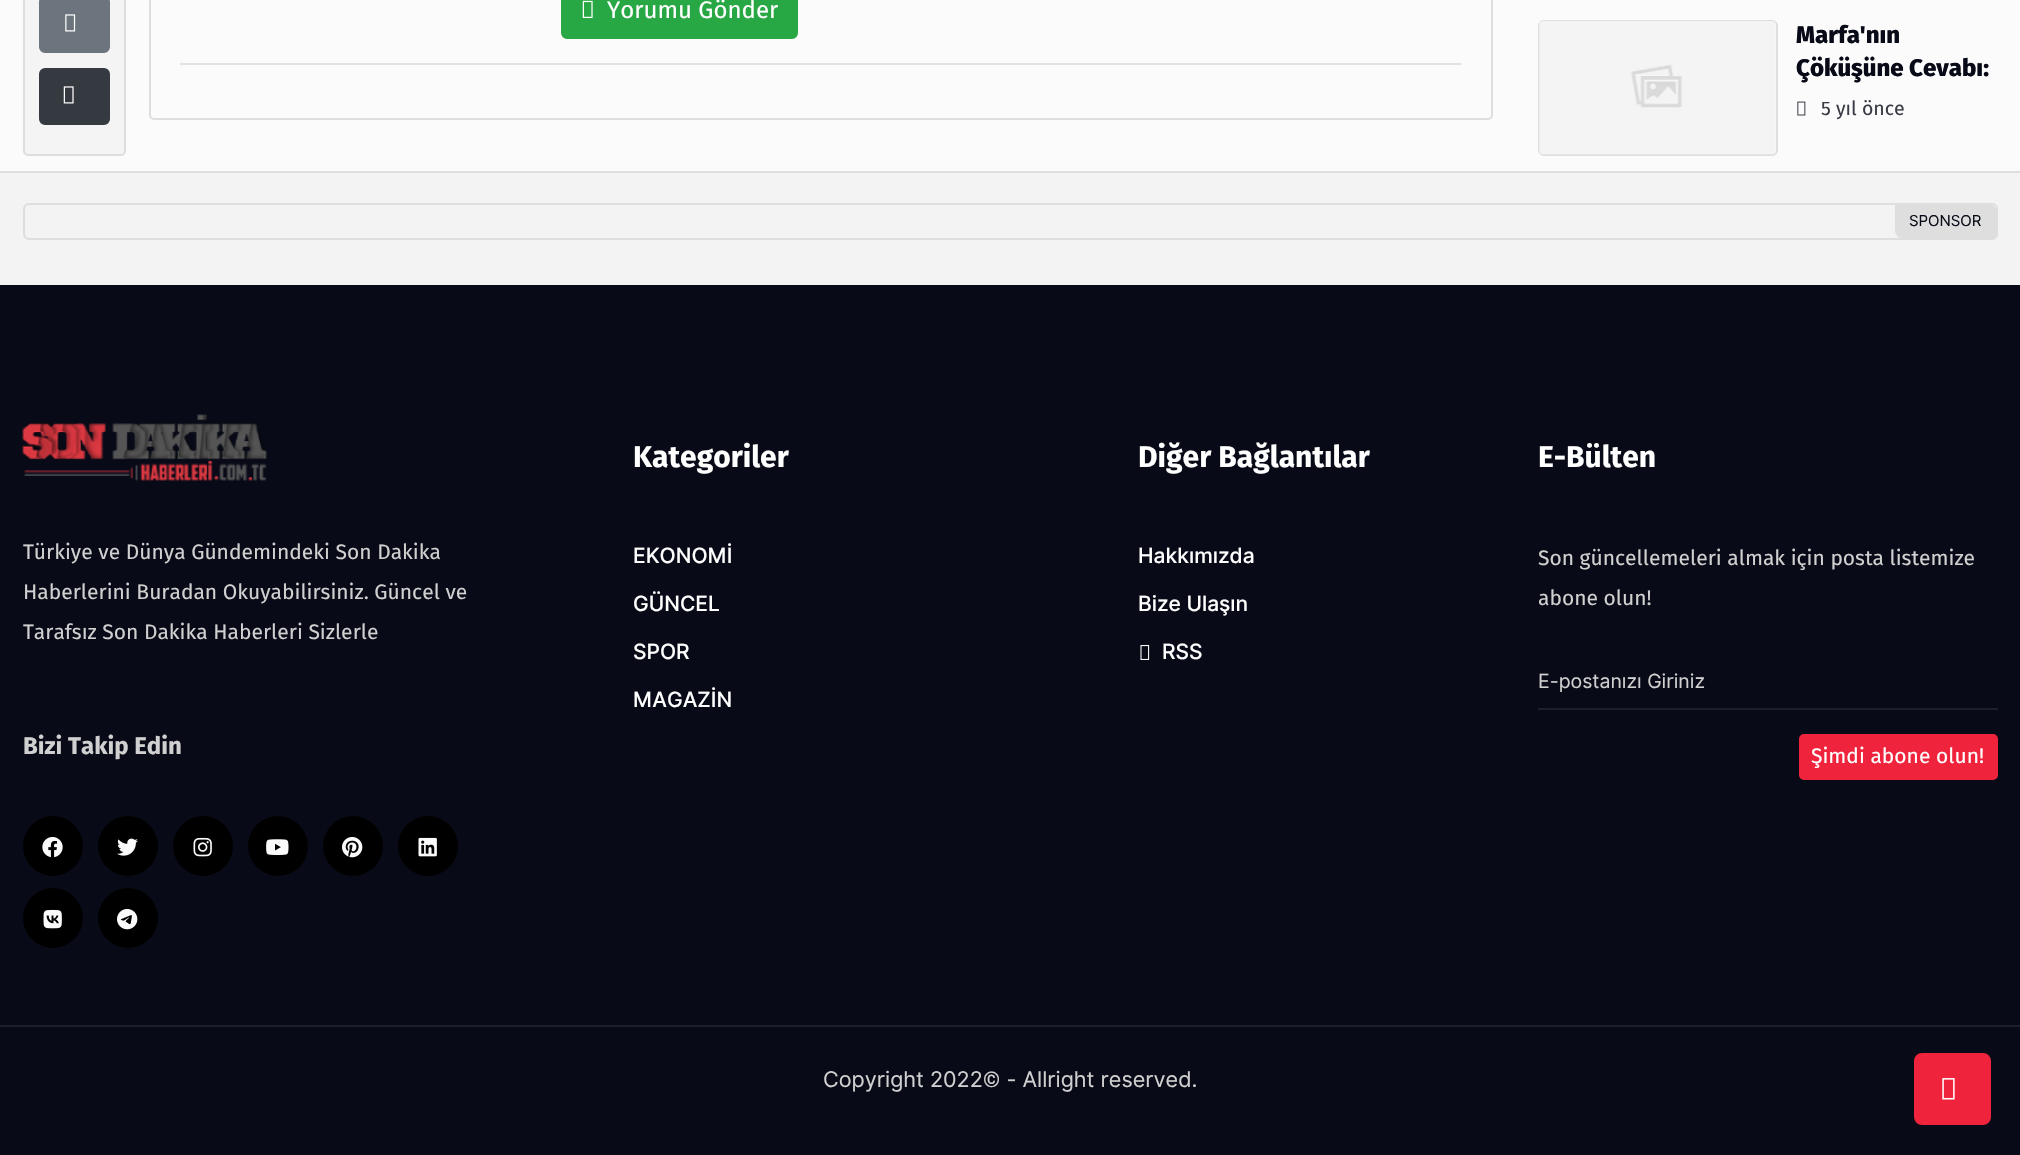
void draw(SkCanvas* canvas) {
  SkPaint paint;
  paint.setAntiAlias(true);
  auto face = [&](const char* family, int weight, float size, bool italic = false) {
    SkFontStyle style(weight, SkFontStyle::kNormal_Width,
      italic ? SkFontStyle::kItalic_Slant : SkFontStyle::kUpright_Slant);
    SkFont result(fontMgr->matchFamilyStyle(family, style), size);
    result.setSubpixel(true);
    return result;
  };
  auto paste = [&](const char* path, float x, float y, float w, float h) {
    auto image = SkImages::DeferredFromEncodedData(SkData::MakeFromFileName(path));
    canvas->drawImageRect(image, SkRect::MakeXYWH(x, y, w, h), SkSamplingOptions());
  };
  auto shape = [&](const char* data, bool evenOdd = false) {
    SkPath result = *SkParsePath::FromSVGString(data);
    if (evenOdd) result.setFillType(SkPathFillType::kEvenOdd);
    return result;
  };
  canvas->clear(0xfff3f3f3);
  paint.setColor(0xfffbfbfb);
  canvas->drawRect(SkRect::MakeXYWH(0, 0, 2020, 171), paint);
  paint.setColor(0xffdedede);
  canvas->drawRect(SkRect::MakeXYWH(0, 171, 2020, 2), paint);
  paint.setColor(0xfff4f4f4);
  canvas->drawRoundRect(SkRect::MakeXYWH(24, -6, 101, 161), 4, 4, paint);
  paint.setStroke(true);
  paint.setStrokeWidth(2);
  paint.setColor(0xffdedede);
  canvas->drawRoundRect(SkRect::MakeXYWH(24, -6, 101, 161), 4, 4, paint);
  paint.setStroke(false);
  paint.setColor(0xff6c757d);
  canvas->drawRoundRect(SkRect::MakeXYWH(40, -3, 69, 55), 5, 5, paint);
  paint.setStroke(true);
  canvas->drawRoundRect(SkRect::MakeXYWH(40, -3, 69, 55), 5, 5, paint);
  paste("img/1.png", 65, 14, 11, 18);
  paint.setStroke(false);
  paint.setColor(0xff343a40);
  canvas->drawRoundRect(SkRect::MakeXYWH(40, 69, 69, 55), 5, 5, paint);
  paint.setStroke(true);
  canvas->drawRoundRect(SkRect::MakeXYWH(40, 69, 69, 55), 5, 5, paint);
  paste("img/2.png", 63, 86, 11, 18);
  paint.setColor(0xffdedede);
  canvas->drawRoundRect(SkRect::MakeXYWH(150, -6, 1342, 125), 4, 4, paint);
  paint.setStroke(false);
  paint.setColor(0xff28a745);
  canvas->drawRoundRect(SkRect::MakeXYWH(562, -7, 235, 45), 5, 5, paint);
  paint.setStroke(true);
  canvas->drawRoundRect(SkRect::MakeXYWH(562, -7, 235, 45), 5, 5, paint);
  paste("img/3.png", 582, 0, 11, 18);
  paint.setStroke(false);
  paint.setColor(0xffe2e2e2);
  canvas->drawRect(SkRect::MakeXYWH(180, 63, 1281, 2), paint);
  paint.setStroke(true);
  paint.setColor(0xffdedede);
  canvas->drawRoundRect(SkRect::MakeXYWH(1539, 21, 238, 134), 5, 5, paint);
  paste("img/4.png", 1539, 21, 237, 134);
  paste("img/5.png", 1797, 101, 9, 15);
  canvas->drawRoundRect(SkRect::MakeXYWH(24, 204, 1973, 35), 5, 5, paint);
  canvas->save();
  canvas->clipPath(shape("M29 204H1992C1995 204 1997 206 1997 209V234C1997 237 1995 239 1992 239H29C26 239 24 237 24 234V209C24 206 26 204 29 204Z"), true);
  paint.setStroke(false);
  canvas->drawPath(shape("M1895 204H1988C1993 204 1997 208 1997 213V234C1997 237 1995 239 1992 239H1904C1899 239 1895 235 1895 230Z"), paint);
  canvas->restore();
  paint.setColor(0xff080b17);
  canvas->drawRect(SkRect::MakeXYWH(0, 285, 2020, 870), paint);
  paste("img/6.png", 22, 414, 245, 67);
  paint.setColor(0xff000000);
  canvas->drawCircle(53, 846, 30, paint);
  paste("img/7.png", 42, 836, 21, 22);
  canvas->drawCircle(128, 846, 30, paint);
  paste("img/8.png", 117, 838, 21, 18);
  canvas->drawCircle(203, 846, 30, paint);
  paste("img/9.png", 193, 837, 19, 20);
  canvas->drawCircle(278, 846, 30, paint);
  paste("img/10.png", 266, 839, 23, 16);
  canvas->drawCircle(353, 846, 30, paint);
  paste("img/11.png", 342, 836, 21, 22);
  canvas->drawCircle(428, 846, 30, paint);
  paste("img/12.png", 418, 837, 19, 20);
  canvas->drawCircle(53, 918, 30, paint);
  paste("img/13.png", 43, 909, 19, 20);
  canvas->drawCircle(128, 918, 30, paint);
  paste("img/14.png", 117, 908, 21, 22);
  paste("img/15.png", 1140, 645, 10, 15);
  paint.setColor(0xff1c1f2a);
  canvas->drawRect(SkRect::MakeXYWH(1538, 708, 460, 2), paint);
  paint.setColor(0xffef233c);
  canvas->drawRoundRect(SkRect::MakeXYWH(1800, 735, 197, 44), 4, 4, paint);
  paint.setStroke(true);
  canvas->drawRoundRect(SkRect::MakeXYWH(1800, 735, 197, 44), 4, 4, paint);
  paint.setStroke(false);
  paint.setColor(0xff1c1f2a);
  canvas->drawRect(SkRect::MakeXYWH(0, 1025, 2020, 2), paint);
  paint.setColor(0xffef233c);
  canvas->drawRoundRect(SkRect::MakeXYWH(1915, 1054, 75, 70), 7, 7, paint);
  paint.setStroke(true);
  canvas->drawRoundRect(SkRect::MakeXYWH(1915, 1054, 75, 70), 7, 7, paint);
  paste("img/16.png", 1942, 1078, 13, 22);
  auto f0 = face("Fira Sans", 400, 24);
  paint.setStroke(false);
  paint.setColor(0xffffffff);
  canvas->drawString("Yorumu Gönder", 607, 18, f0, paint);
  auto f1 = face("Fira Sans", 800, 24);
  paint.setColor(0xff080b17);
  canvas->drawString("Marfa'nın", 1796, 43, f1, paint);
  canvas->drawString("Çöküşüne Cevabı:", 1796, 76, f1, paint);
  auto f2 = face("Fira Sans", 400, 19.5f);
  paint.setColor(0xff393b45);
  canvas->drawString("5 yıl önce", 1821, 115, f2, paint);
  auto f3 = face("Inter", 400, 15);
  paint.setColor(0xff080b17);
  canvas->drawString("SPONSOR", 1909, 226, f3, paint);
  auto f4 = face("Fira Sans", 400, 21);
  paint.setColor(0xffd0d0d0);
  {
    const struct { const char* s; float x, y; } items[] = {
      {"Türkiye ve Dünya Gündemindeki Son Dakika", 23, 559},
      {"Haberlerini Buradan Okuyabilirsiniz. Güncel ve", 23, 599},
      {"Tarafsız Son Dakika Haberleri Sizlerle", 23, 639},
    };
    for (auto [s, x, y] : items) {
      canvas->drawString(s, x, y, f4, paint);
    }
  }
  auto f5 = face("Fira Sans", 700, 24);
  canvas->drawString("Bizi Takip Edin", 23, 754, f5, paint);
  auto f6 = face("Fira Sans", 700, 30);
  paint.setColor(0xffffffff);
  canvas->drawString("Kategoriler", 633, 467, f6, paint);
  auto f7 = face("Inter", 500, 21);
  {
    const struct { const char* s; float x, y; } items[] = {
      {"EKONOMİ", 633, 563},
      {"GÜNCEL", 633, 611},
      {"SPOR", 633, 659},
      {"MAGAZİN", 633, 707},
    };
    for (auto [s, x, y] : items) {
      canvas->drawString(s, x, y, f7, paint);
    }
  }
  canvas->drawString("Diğer Bağlantılar", 1138, 467, f6, paint);
  {
    const struct { const char* s; float x, y; } items[] = {
      {"Hakkımızda", 1138, 563},
      {"Bize Ulaşın", 1138, 611},
      {"RSS", 1162, 659},
    };
    for (auto [s, x, y] : items) {
      canvas->drawString(s, x, y, f7, paint);
    }
  }
  canvas->drawString("E-Bülten", 1538, 467, f6, paint);
  paint.setColor(0xffd0d0d0);
  canvas->drawString("Son güncellemeleri almak için posta listemize", 1538, 565, f4, paint);
  canvas->drawString("abone olun!", 1538, 605, f4, paint);
  auto f8 = face("Inter", 400, 19.5f);
  canvas->drawString("E-postanızı Giriniz", 1538, 688, f8, paint);
  paint.setColor(0xffffffff);
  canvas->drawString("Şimdi abone olun!", 1811, 763, f4, paint);
  auto f9 = face("Inter", 400, 21.6f);
  paint.setColor(0xffd0d0d0);
  canvas->drawString("Copyright 2022© - Allright reserved.", 823, 1087, f9, paint);
}
